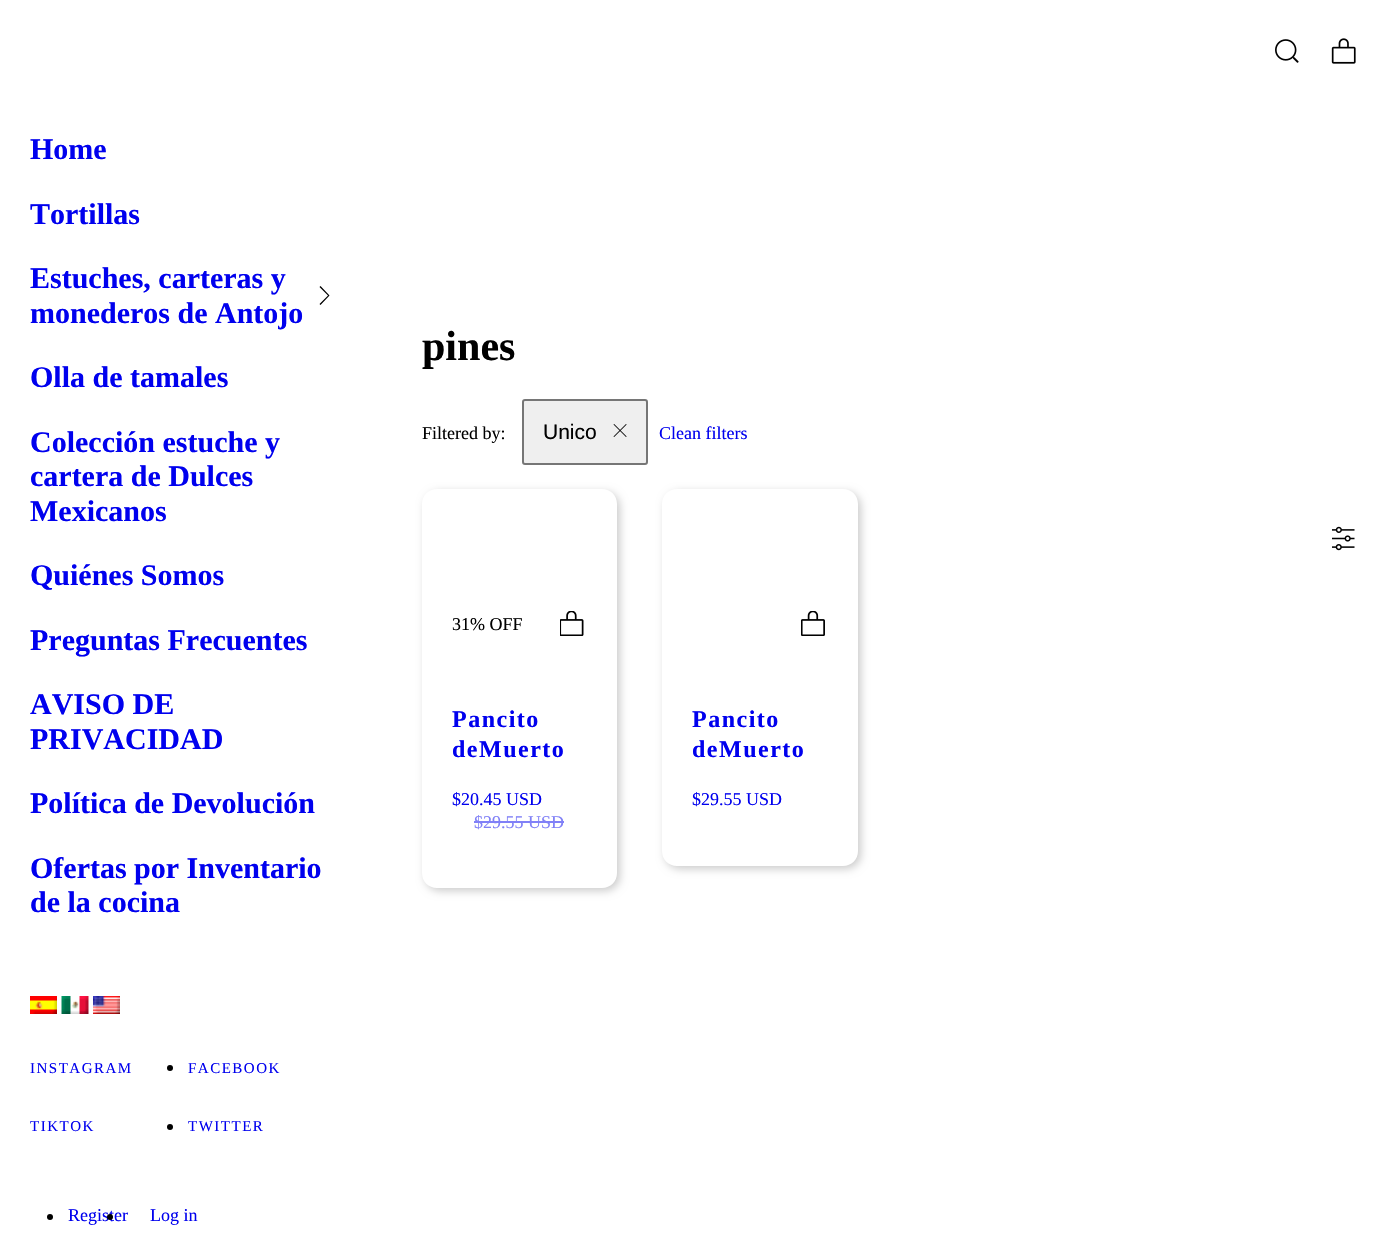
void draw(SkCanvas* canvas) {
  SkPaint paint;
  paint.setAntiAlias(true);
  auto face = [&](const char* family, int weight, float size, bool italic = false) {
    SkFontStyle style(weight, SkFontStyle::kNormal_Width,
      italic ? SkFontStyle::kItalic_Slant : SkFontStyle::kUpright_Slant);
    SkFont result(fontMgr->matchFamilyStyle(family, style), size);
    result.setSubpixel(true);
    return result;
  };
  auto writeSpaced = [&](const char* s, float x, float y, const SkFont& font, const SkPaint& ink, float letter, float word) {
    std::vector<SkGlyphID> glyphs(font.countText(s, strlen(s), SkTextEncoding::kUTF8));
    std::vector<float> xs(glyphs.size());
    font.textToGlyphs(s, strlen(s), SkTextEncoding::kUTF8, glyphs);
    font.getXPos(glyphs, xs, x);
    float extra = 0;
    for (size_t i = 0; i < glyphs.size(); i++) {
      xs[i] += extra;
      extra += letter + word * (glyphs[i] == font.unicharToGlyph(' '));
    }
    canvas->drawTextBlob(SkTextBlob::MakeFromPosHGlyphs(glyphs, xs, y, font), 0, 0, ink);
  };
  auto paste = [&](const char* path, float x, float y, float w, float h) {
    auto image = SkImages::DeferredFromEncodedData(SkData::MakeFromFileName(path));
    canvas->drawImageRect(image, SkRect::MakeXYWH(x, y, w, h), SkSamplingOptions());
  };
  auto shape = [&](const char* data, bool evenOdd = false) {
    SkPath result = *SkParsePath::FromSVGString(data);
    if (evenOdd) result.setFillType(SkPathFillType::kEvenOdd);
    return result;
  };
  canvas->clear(0xffffffff);
  paste("img/1.png", 1275, 39, 24, 24);
  paste("img/2.png", 1331, 38, 25, 26);
  paint.setColor(0xff000000);
  canvas->drawPath(shape("M320.5 305L319.5 304L328 295.5L319.5 287L320.5 286L329.5 295.5Z"), paint);
  paste("img/3.png", 30, 996, 27, 18);
  paste("img/4.png", 61, 996, 28, 18);
  paste("img/5.png", 93, 996, 27, 18);
  canvas->drawCircle(170, 1068, 3, paint);
  canvas->drawCircle(170, 1127, 3, paint);
  canvas->drawCircle(50, 1217, 3, paint);
  paint.setColor(0xffefefef);
  canvas->drawRoundRect(SkRect::MakeXYWH(523, 400, 124, 64), 2, 2, paint);
  paint.setStroke(true);
  paint.setStrokeWidth(2);
  paint.setColor(0xff767676);
  canvas->drawRoundRect(SkRect::MakeXYWH(523, 400, 124, 64), 2, 2, paint);
  paste("img/6.png", 613, 424, 14, 13);
  paste("img/7.png", 1332, 526, 23, 25);
  canvas->save();
  canvas->clipPath(shape("M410 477H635V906H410ZM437 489H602C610.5 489 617 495.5 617 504V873C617 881.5 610.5 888 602 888H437C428.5 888 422 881.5 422 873V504C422 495.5 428.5 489 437 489Z", true), true);
  paint.setStroke(false);
  paint.setColor(0x33000000);
  paint.setMaskFilter(SkMaskFilter::MakeBlur(kNormal_SkBlurStyle, 4.5f));
  canvas->drawRoundRect(SkRect::MakeXYWH(425, 492, 195, 399), 15, 15, paint);
  paint.setMaskFilter(nullptr);
  canvas->restore();
  paste("img/8.png", 560, 611, 24, 25);
  paint.setColor(0xff8080f7);
  canvas->drawRect(SkRect::MakeXYWH(474, 821, 90, 2), paint);
  canvas->save();
  canvas->clipPath(shape("M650 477H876V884H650ZM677 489H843C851.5 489 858 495.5 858 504V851C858 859.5 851.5 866 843 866H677C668.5 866 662 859.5 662 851V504C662 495.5 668.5 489 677 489Z", true), true);
  paint.setColor(0x33000000);
  paint.setMaskFilter(SkMaskFilter::MakeBlur(kNormal_SkBlurStyle, 4.5f));
  canvas->drawRoundRect(SkRect::MakeXYWH(665, 492, 196, 377), 15, 15, paint);
  paint.setMaskFilter(nullptr);
  canvas->restore();
  paste("img/9.png", 801, 611, 24, 25);
  auto f0 = face("Liberation Serif", 700, 30);
  paint.setColor(0xff0000ee);
  {
    const struct { const char* s; float x, y; } items[] = {
      {"Home", 30, 159},
      {"Tortillas", 30, 224},
      {"Estuches, carteras y", 30, 288},
      {"monederos de Antojo", 30, 323},
      {"Olla de tamales", 30, 387},
      {"Colección estuche y", 30, 452},
      {"cartera de Dulces", 30, 486},
      {"Mexicanos", 30, 521},
      {"Quiénes Somos", 30, 585},
      {"Preguntas Frecuentes", 30, 650},
      {"AVISO DE", 30, 714},
      {"PRIVACIDAD", 30, 749},
      {"Política de Devolución", 30, 813},
      {"Ofertas por Inventario", 30, 878},
      {"de la cocina", 30, 912},
    };
    for (auto [s, x, y] : items) {
      canvas->drawString(s, x, y, f0, paint);
    }
  }
  auto f1 = face("Liberation Serif", 400, 15);
  {
    const struct { const char* s; float x, y; } items[] = {
      {"INSTAGRAM", 30, 1073},
      {"FACEBOOK", 188, 1073},
      {"TIKTOK", 30, 1131},
      {"TWITTER", 188, 1131},
    };
    for (auto [s, x, y] : items) {
      writeSpaced(s, x, y, f1, paint, 1.5f, 0);
    }
  }
  auto f2 = face("Liberation Serif", 400, 18);
  canvas->drawString("Register", 68, 1221, f2, paint);
  paint.setColor(0xff000000);
  canvas->drawCircle(110, 1217, 3, paint);
  paint.setColor(0xff0000ee);
  canvas->drawString("Log in", 150, 1221, f2, paint);
  auto f3 = face("Liberation Serif", 700, 42);
  paint.setColor(0xff000000);
  canvas->drawString("pines", 422, 360, f3, paint);
  canvas->drawString("Filtered by:", 422, 439, f2, paint);
  auto f4 = face("Liberation Sans", 400, 21);
  canvas->drawString("Unico", 543, 439, f4, paint);
  paint.setColor(0xff0000ee);
  canvas->drawString("Clean filters", 659, 439, f2, paint);
  paint.setColor(0xff000000);
  canvas->drawString("31% OFF", 452, 630, f2, paint);
  auto f5 = face("Liberation Serif", 700, 24);
  paint.setColor(0xff0000ee);
  writeSpaced("Pancito", 452, 727, f5, paint, 1.5f, 0);
  writeSpaced("deMuerto", 452, 757, f5, paint, 1.5f, 0);
  canvas->drawString("$20.45 USD", 452, 805, f2, paint);
  paint.setColor(0xff8080f7);
  canvas->drawString("$29.55 USD", 474, 828, f2, paint);
  paint.setColor(0xff0000ee);
  writeSpaced("Pancito", 692, 727, f5, paint, 1.5f, 0);
  writeSpaced("deMuerto", 692, 757, f5, paint, 1.5f, 0);
  canvas->drawString("$29.55 USD", 692, 805, f2, paint);
}
